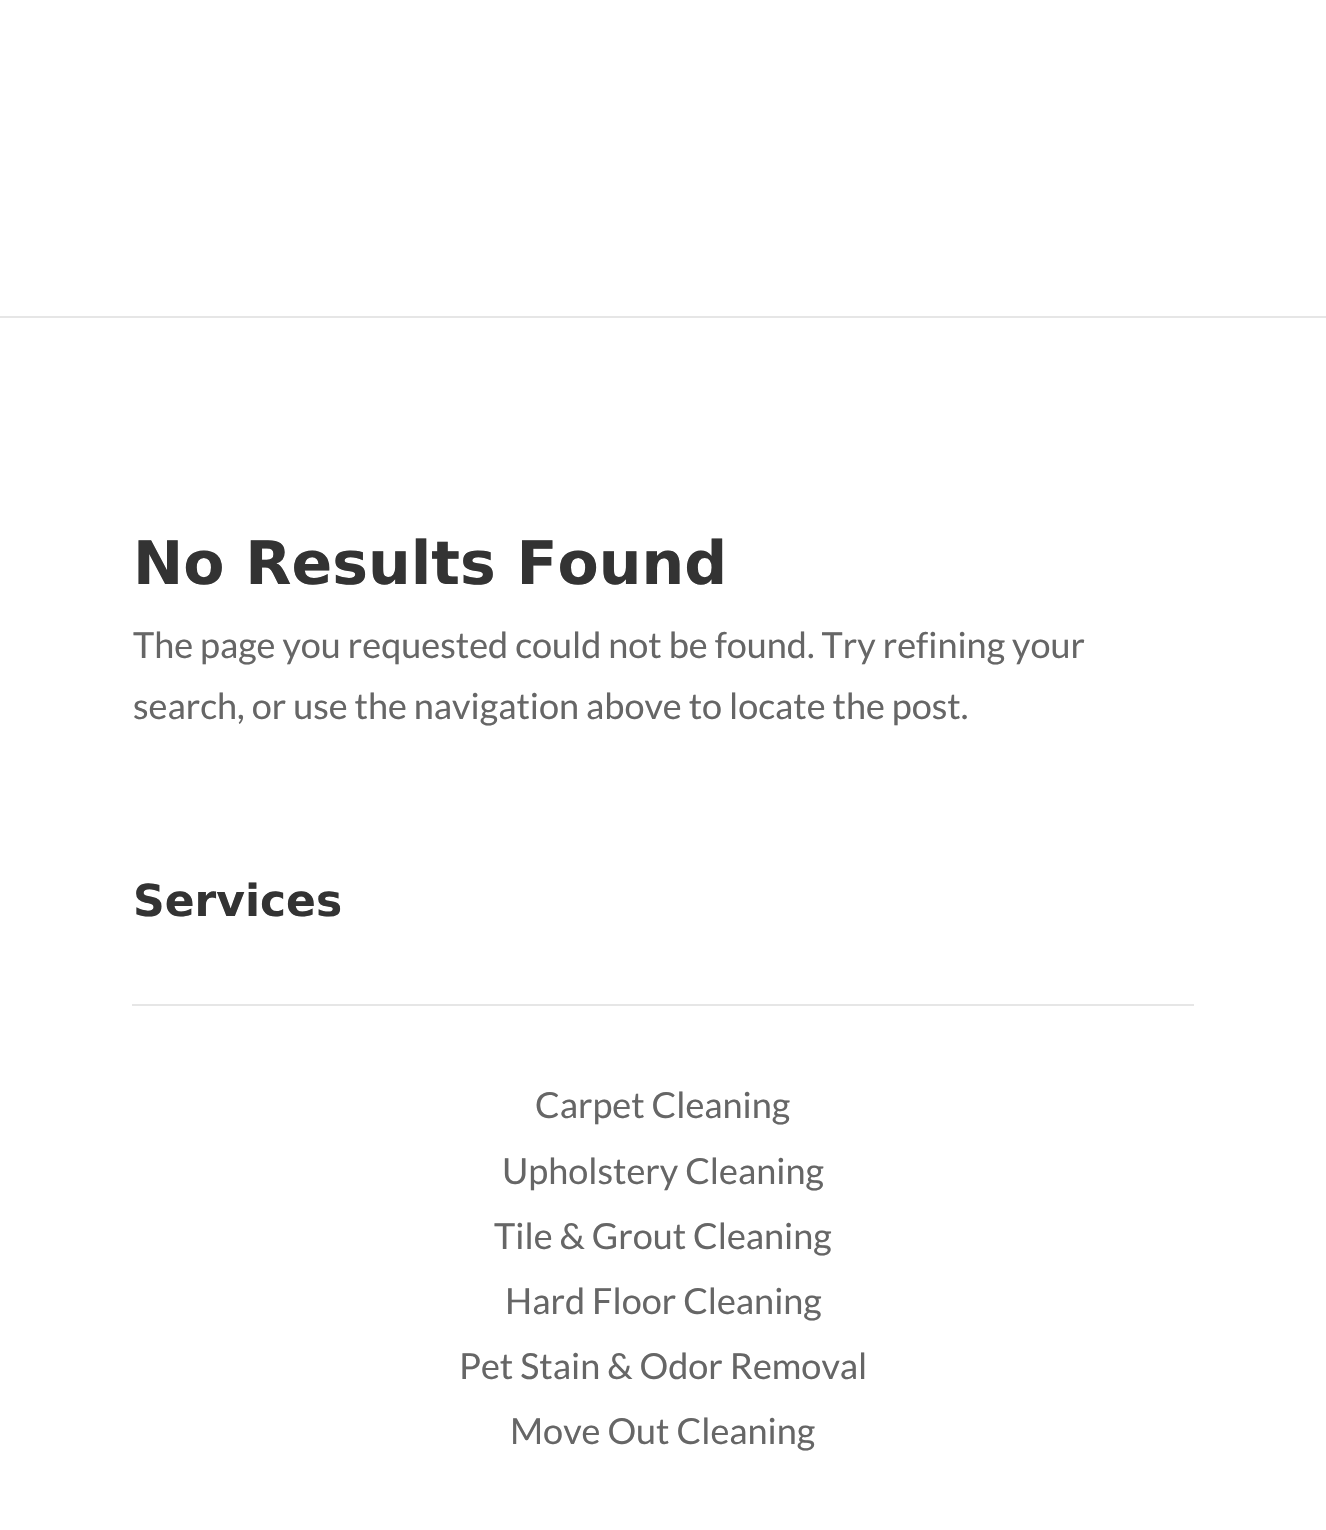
void draw(SkCanvas* canvas) {
  SkPaint paint;
  paint.setAntiAlias(true);
  auto face = [&](const char* family, int weight, float size, bool italic = false) {
    SkFontStyle style(weight, SkFontStyle::kNormal_Width,
      italic ? SkFontStyle::kItalic_Slant : SkFontStyle::kUpright_Slant);
    SkFont result(fontMgr->matchFamilyStyle(family, style), size);
    result.setSubpixel(true);
    return result;
  };
  canvas->clear(0xffffffff);
  paint.setColor(0xffe6e6e6);
  canvas->drawRect(SkRect::MakeXYWH(0, 316, 1326, 2), paint);
  canvas->drawRect(SkRect::MakeXYWH(132, 1004, 1062, 2), paint);
  auto f0 = face("DejaVu Sans", 700, 60);
  paint.setColor(0xff333333);
  canvas->drawString("No Results Found", 133, 584, f0, paint);
  auto f1 = face("Lato", 400, 36);
  paint.setColor(0xff666666);
  canvas->drawString("The page you requested could not be found. Try refining your", 133, 658, f1, paint);
  canvas->drawString("search, or use the navigation above to locate the post.", 133, 719, f1, paint);
  auto f2 = face("DejaVu Sans", 700, 44);
  paint.setColor(0xff333333);
  canvas->drawString("Services", 133, 916, f2, paint);
  paint.setColor(0xff666666);
  {
    const struct { const char* s; float x, y; } items[] = {
      {"Carpet Cleaning", 535, 1118},
      {"Upholstery Cleaning", 502, 1184},
      {"Tile & Grout Cleaning", 494, 1249},
      {"Hard Floor Cleaning", 505, 1314},
      {"Pet Stain & Odor Removal", 459, 1379},
      {"Move Out Cleaning", 510, 1444},
    };
    for (auto [s, x, y] : items) {
      canvas->drawString(s, x, y, f1, paint);
    }
  }
}
